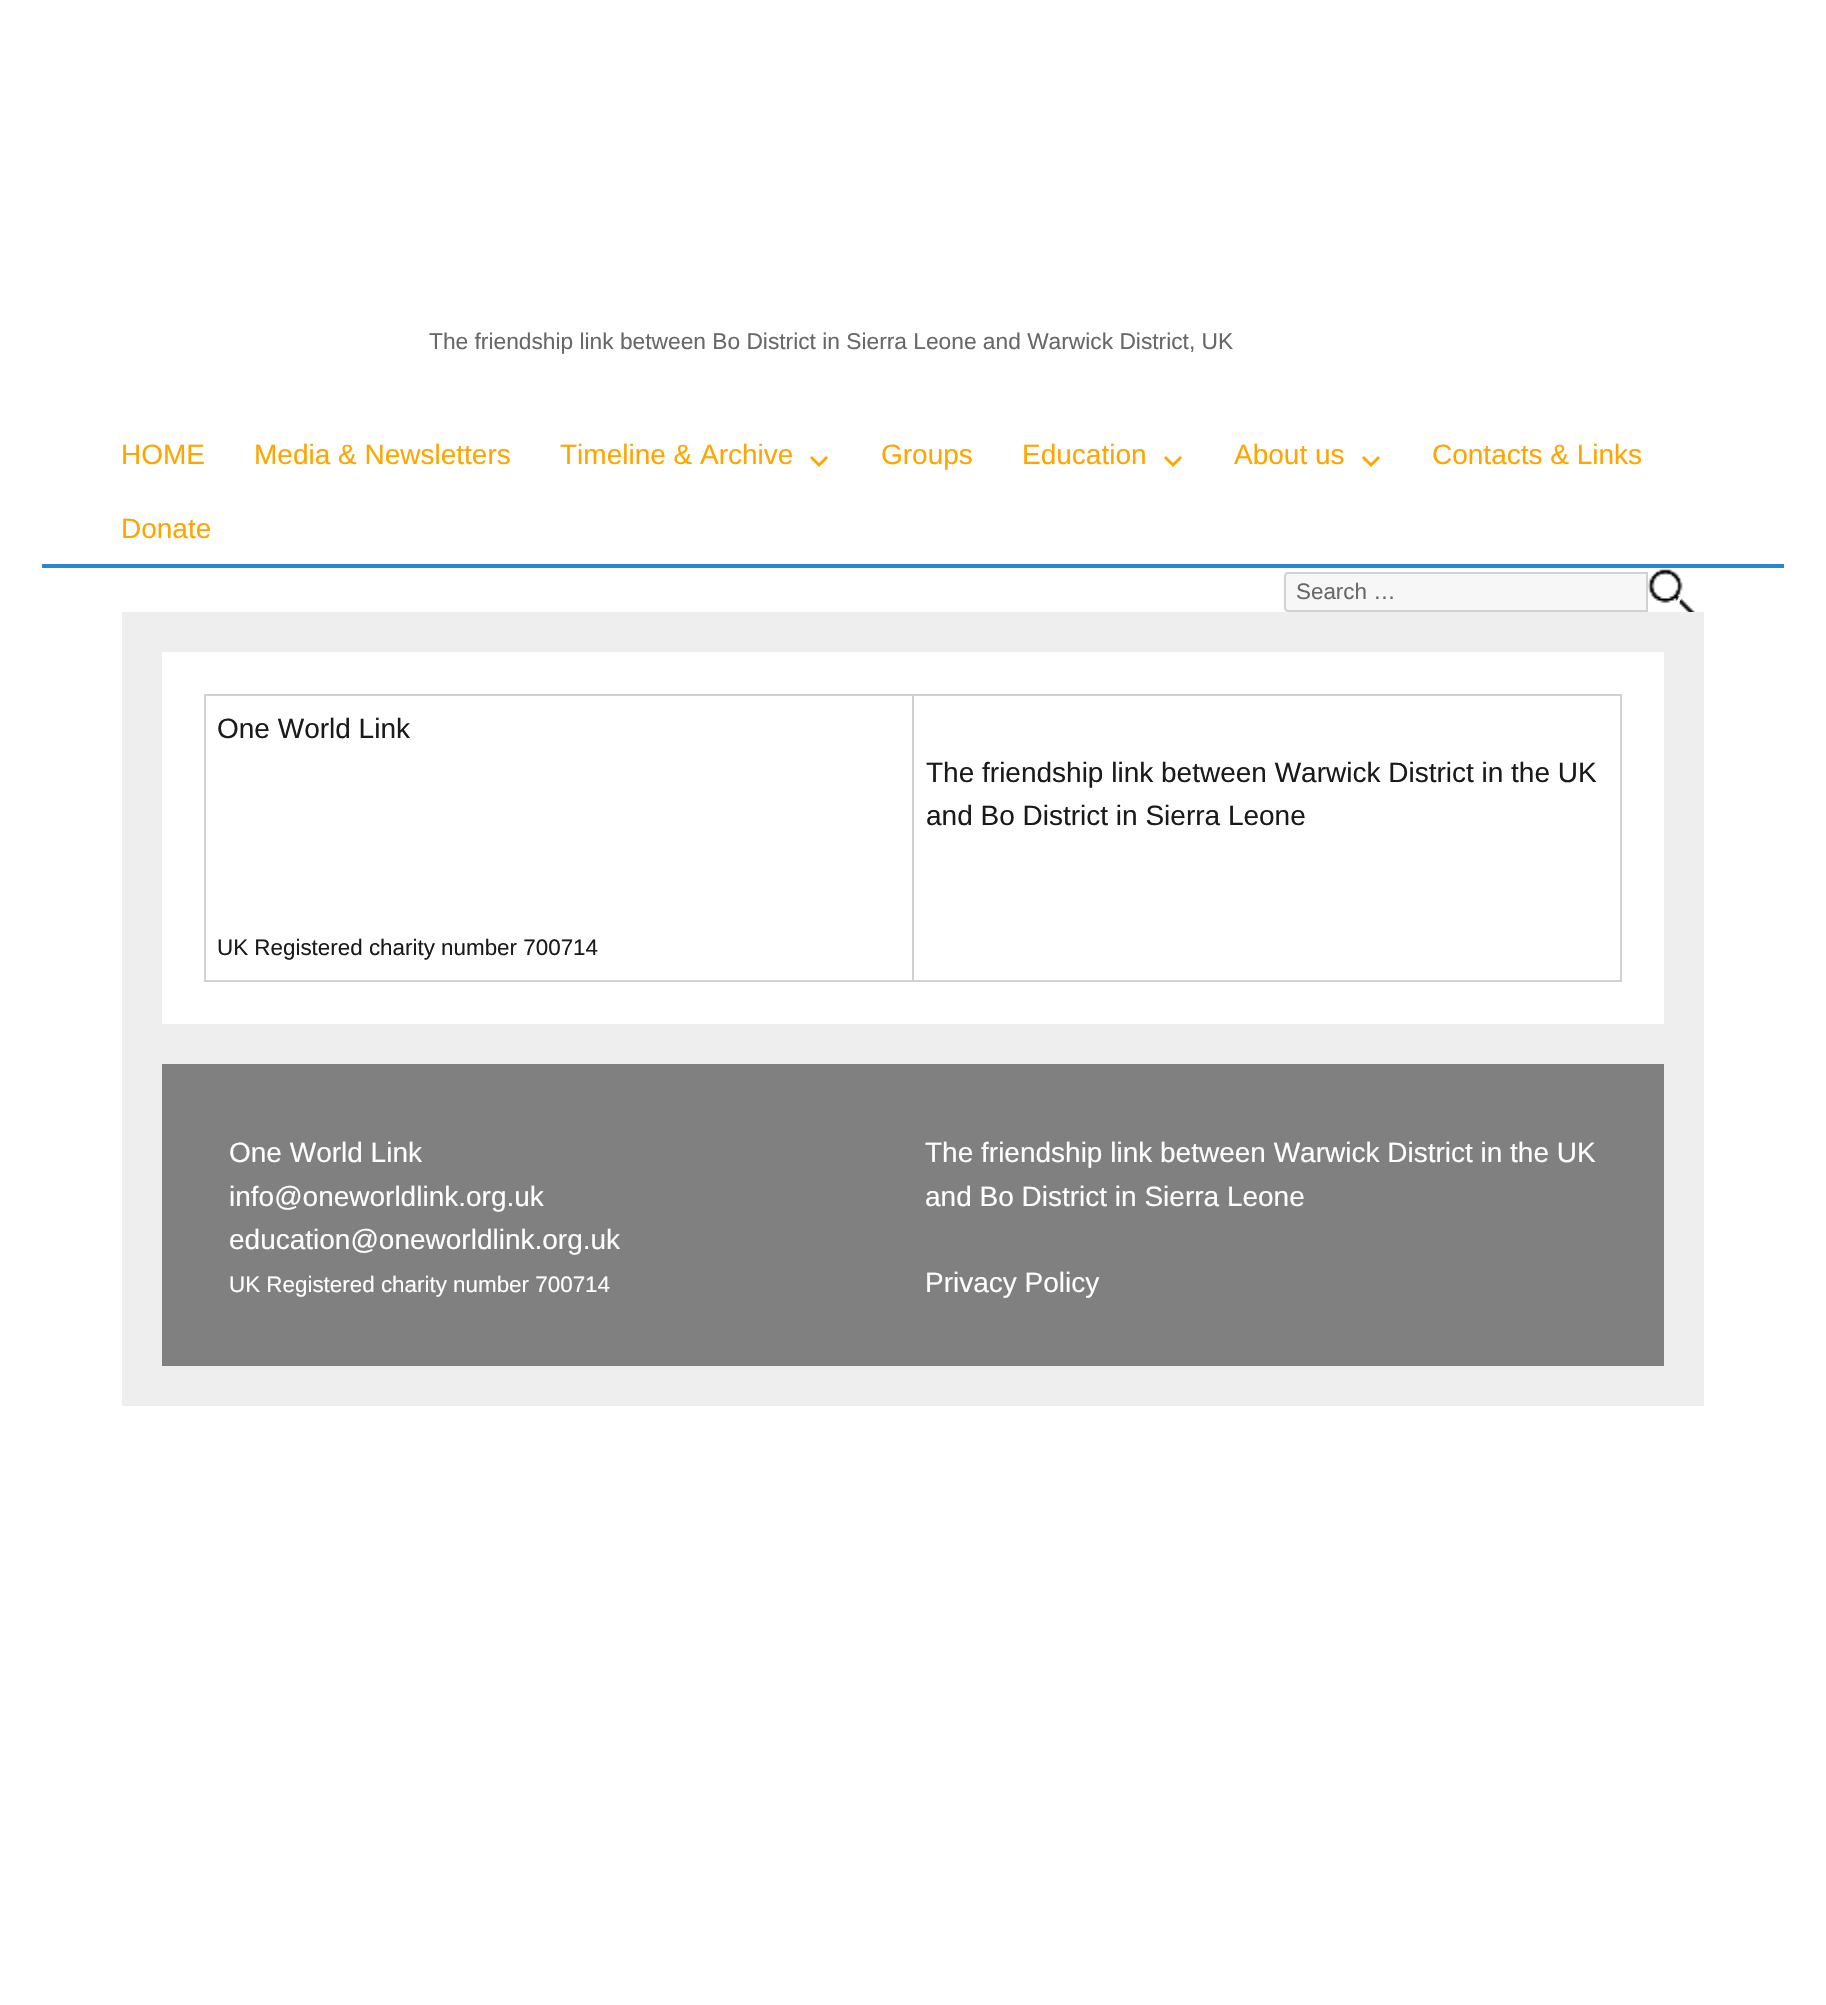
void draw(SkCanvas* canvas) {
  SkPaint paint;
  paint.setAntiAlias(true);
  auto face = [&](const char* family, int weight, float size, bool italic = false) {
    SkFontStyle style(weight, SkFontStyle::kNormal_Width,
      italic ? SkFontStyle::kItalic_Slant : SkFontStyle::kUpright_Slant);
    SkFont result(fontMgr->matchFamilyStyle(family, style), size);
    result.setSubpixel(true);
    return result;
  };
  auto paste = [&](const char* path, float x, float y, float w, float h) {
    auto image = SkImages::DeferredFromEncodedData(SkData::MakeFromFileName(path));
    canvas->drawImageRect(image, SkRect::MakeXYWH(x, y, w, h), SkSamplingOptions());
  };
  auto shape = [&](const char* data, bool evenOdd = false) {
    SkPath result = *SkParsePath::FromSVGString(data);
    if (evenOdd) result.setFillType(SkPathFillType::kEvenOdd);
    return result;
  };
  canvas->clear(0xffffffff);
  paint.setColor(0xff2c84d6);
  canvas->drawRect(SkRect::MakeXYWH(42, 564, 1742, 4), paint);
  paint.setColor(0xffffa500);
  canvas->drawPath(shape("M826 456L828 458L819 467L810 458L812 456L819 463Z"), paint);
  canvas->drawPath(shape("M1180 456L1182 458L1173 467L1164 458L1166 456L1173 463Z"), paint);
  canvas->drawPath(shape("M1378 456L1380 458L1371 467L1362 458L1364 456L1371 463Z"), paint);
  paint.setColor(0xfff7f7f7);
  canvas->drawPath(shape("M1288 573H1647V611H1288C1286.5 611 1285 609.5 1285 608V576C1285 574.5 1286.5 573 1288 573Z"), paint);
  paint.setStroke(true);
  paint.setStrokeWidth(2);
  paint.setColor(0xffd1d1d1);
  canvas->drawPath(shape("M1288 573H1647V611H1288C1286.5 611 1285 609.5 1285 608V576C1285 574.5 1286.5 573 1288 573Z"), paint);
  paste("img/1.png", 1648, 568, 48, 44);
  paste("img/2.png", 1676, 596, 6, 8);
  paint.setStroke(false);
  {
    const struct { float x, y, w, h; SkColor color; } items[] = {
      {162, 612, 1502, 40, 0xffeeeeee},
      {1664, 612, 40, 412, 0xffeeeeee},
      {122, 612, 40, 412, 0xffeeeeee},
      {204, 694, 1418, 2, 0xffd1d1d1},
      {204, 694, 2, 288, 0xffd1d1d1},
      {912, 696, 2, 286, 0xffd1d1d1},
      {206, 980, 708, 2, 0xffd1d1d1},
      {1620, 696, 2, 286, 0xffd1d1d1},
      {914, 980, 708, 2, 0xffd1d1d1},
    };
    for (auto [x, y, w, h, color] : items) {
      paint.setColor(color);
      canvas->drawRect(SkRect::MakeXYWH(x, y, w, h), paint);
    }
  }
  paint.setColor(0xff808080);
  canvas->drawRect(SkRect::MakeXYWH(142, 1044, 1542, 342), paint);
  paint.setStroke(true);
  paint.setStrokeWidth(40);
  paint.setColor(0xffeeeeee);
  canvas->drawRect(SkRect::MakeXYWH(142, 1044, 1542, 342), paint);
  auto f0 = face("Liberation Sans", 400, 22.75f);
  paint.setStroke(false);
  paint.setColor(0xff686868);
  canvas->drawString("The friendship link between Bo District in Sierra Leone and Warwick District, UK", 429, 349, f0, paint);
  auto f1 = face("Liberation Sans", 400, 28);
  paint.setColor(0xffffa500);
  {
    const struct { const char* s; float x, y; } items[] = {
      {"HOME", 121, 464},
      {"Media & Newsletters", 254, 464},
      {"Timeline & Archive", 560, 464},
      {"Groups", 881, 464},
      {"Education", 1022, 464},
      {"About us", 1234, 464},
      {"Contacts & Links", 1432, 464},
      {"Donate", 121, 538},
    };
    for (auto [s, x, y] : items) {
      canvas->drawString(s, x, y, f1, paint);
    }
  }
  auto f2 = face("Liberation Sans", 400, 22.4f);
  paint.setColor(0xff686868);
  canvas->drawString("Search …", 1296, 599, f2, paint);
  paint.setColor(0xff1a1a1a);
  canvas->drawString("One World Link", 217, 738, f1, paint);
  canvas->drawString("UK Registered charity number 700714", 217, 955, f2, paint);
  canvas->drawString("The friendship link between Warwick District in the UK", 926, 782, f1, paint);
  canvas->drawString("and Bo District in Sierra Leone", 926, 825, f1, paint);
  paint.setColor(0xffffffff);
  {
    const struct { const char* s; float x, y; } items[] = {
      {"One World Link", 229, 1162},
      {"info@oneworldlink.org.uk", 229, 1206},
      {"education@oneworldlink.org.uk", 229, 1249},
    };
    for (auto [s, x, y] : items) {
      canvas->drawString(s, x, y, f1, paint);
    }
  }
  canvas->drawString("UK Registered charity number 700714", 229, 1292, f2, paint);
  {
    const struct { const char* s; float x, y; } items[] = {
      {"The friendship link between Warwick District in the UK", 925, 1162},
      {"and Bo District in Sierra Leone", 925, 1206},
      {"Privacy Policy", 925, 1292},
    };
    for (auto [s, x, y] : items) {
      canvas->drawString(s, x, y, f1, paint);
    }
  }
}
